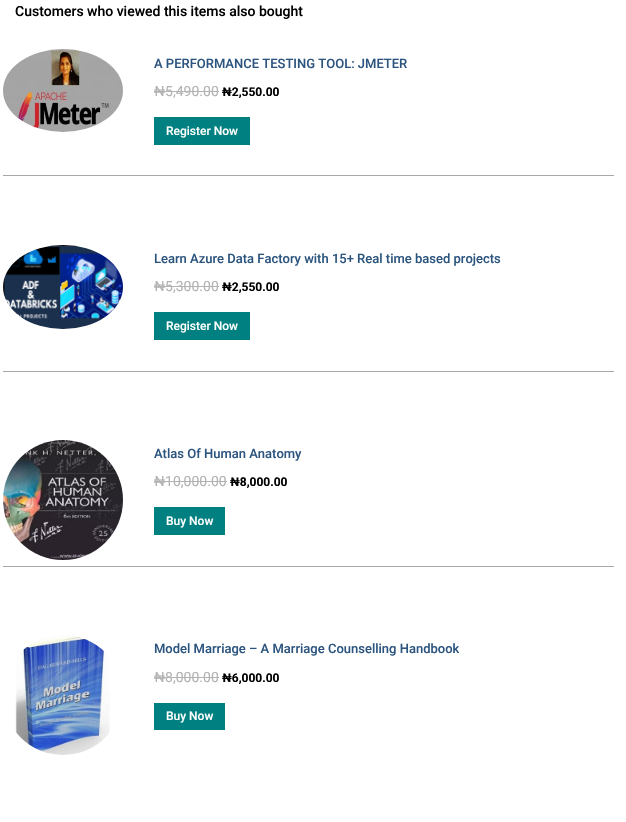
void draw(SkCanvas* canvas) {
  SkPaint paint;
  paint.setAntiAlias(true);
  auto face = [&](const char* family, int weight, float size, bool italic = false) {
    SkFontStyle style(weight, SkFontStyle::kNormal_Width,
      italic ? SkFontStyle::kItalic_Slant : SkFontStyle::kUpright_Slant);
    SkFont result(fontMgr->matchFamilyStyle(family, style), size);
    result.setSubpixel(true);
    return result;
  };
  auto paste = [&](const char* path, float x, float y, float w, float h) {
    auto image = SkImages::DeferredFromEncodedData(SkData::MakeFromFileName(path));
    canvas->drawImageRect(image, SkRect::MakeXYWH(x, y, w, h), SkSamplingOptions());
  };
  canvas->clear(0xffffffff);
  paste("img/1.png", 3, 49, 120, 83);
  {
    const struct { float x, y, w, h; SkColor color; } items[] = {
      {154, 91, 65, 1, 0xffb3b3b3},
      {154, 117, 96, 28, 0xff008080},
      {3, 175, 611, 1, 0xffa8a8a8},
    };
    for (auto [x, y, w, h, color] : items) {
      paint.setColor(color);
      canvas->drawRect(SkRect::MakeXYWH(x, y, w, h), paint);
    }
  }
  paste("img/2.png", 3, 245, 120, 84);
  {
    const struct { float x, y, w, h; SkColor color; } items[] = {
      {154, 286, 65, 1, 0xffb3b3b3},
      {154, 312, 96, 28, 0xff008080},
      {3, 371, 611, 1, 0xffa8a8a8},
    };
    for (auto [x, y, w, h, color] : items) {
      paint.setColor(color);
      canvas->drawRect(SkRect::MakeXYWH(x, y, w, h), paint);
    }
  }
  paste("img/3.png", 3, 440, 120, 120);
  {
    const struct { float x, y, w, h; SkColor color; } items[] = {
      {154, 481, 73, 1, 0xffb3b3b3},
      {154, 507, 71, 28, 0xff008080},
      {3, 566, 611, 1, 0xffa8a8a8},
    };
    for (auto [x, y, w, h, color] : items) {
      paint.setColor(color);
      canvas->drawRect(SkRect::MakeXYWH(x, y, w, h), paint);
    }
  }
  paste("img/4.png", 15, 635, 95, 120);
  paint.setColor(0xffb3b3b3);
  canvas->drawRect(SkRect::MakeXYWH(154, 677, 65, 1), paint);
  paint.setColor(0xff008080);
  canvas->drawRect(SkRect::MakeXYWH(154, 703, 71, 27), paint);
  auto f0 = face("Roboto", 500, 14);
  paint.setColor(0xff000000);
  canvas->drawString("Customers who viewed this items also bought", 15, 16, f0, paint);
  auto f1 = face("Roboto", 500, 13);
  paint.setColor(0xff2b547e);
  canvas->drawString("A PERFORMANCE TESTING TOOL: JMETER", 154, 68, f1, paint);
  auto f2 = face("Roboto", 400, 14);
  paint.setColor(0xffb3b3b3);
  canvas->drawString("₦5,490.00", 154, 96, f2, paint);
  auto f3 = face("Roboto", 700, 12);
  paint.setColor(0xff000000);
  canvas->drawString("₦2,550.00", 222, 96, f3, paint);
  auto f4 = face("Roboto", 500, 12);
  paint.setColor(0xffffffff);
  canvas->drawString("Register Now", 166, 135, f4, paint);
  paint.setColor(0xff2b547e);
  canvas->drawString("Learn Azure Data Factory with 15+ Real time based projects", 154, 263, f1, paint);
  paint.setColor(0xffb3b3b3);
  canvas->drawString("₦5,300.00", 154, 291, f2, paint);
  paint.setColor(0xff000000);
  canvas->drawString("₦2,550.00", 222, 291, f3, paint);
  paint.setColor(0xffffffff);
  canvas->drawString("Register Now", 166, 330, f4, paint);
  paint.setColor(0xff2b547e);
  canvas->drawString("Atlas Of Human Anatomy", 154, 458, f1, paint);
  paint.setColor(0xffb3b3b3);
  canvas->drawString("₦10,000.00", 154, 486, f2, paint);
  paint.setColor(0xff000000);
  canvas->drawString("₦8,000.00", 230, 486, f3, paint);
  paint.setColor(0xffffffff);
  canvas->drawString("Buy Now", 166, 525, f4, paint);
  paint.setColor(0xff2b547e);
  canvas->drawString("Model Marriage – A Marriage Counselling Handbook", 154, 653, f1, paint);
  paint.setColor(0xffb3b3b3);
  canvas->drawString("₦8,000.00", 154, 682, f2, paint);
  paint.setColor(0xff000000);
  canvas->drawString("₦6,000.00", 222, 682, f3, paint);
  paint.setColor(0xffffffff);
  canvas->drawString("Buy Now", 166, 720, f4, paint);
}
